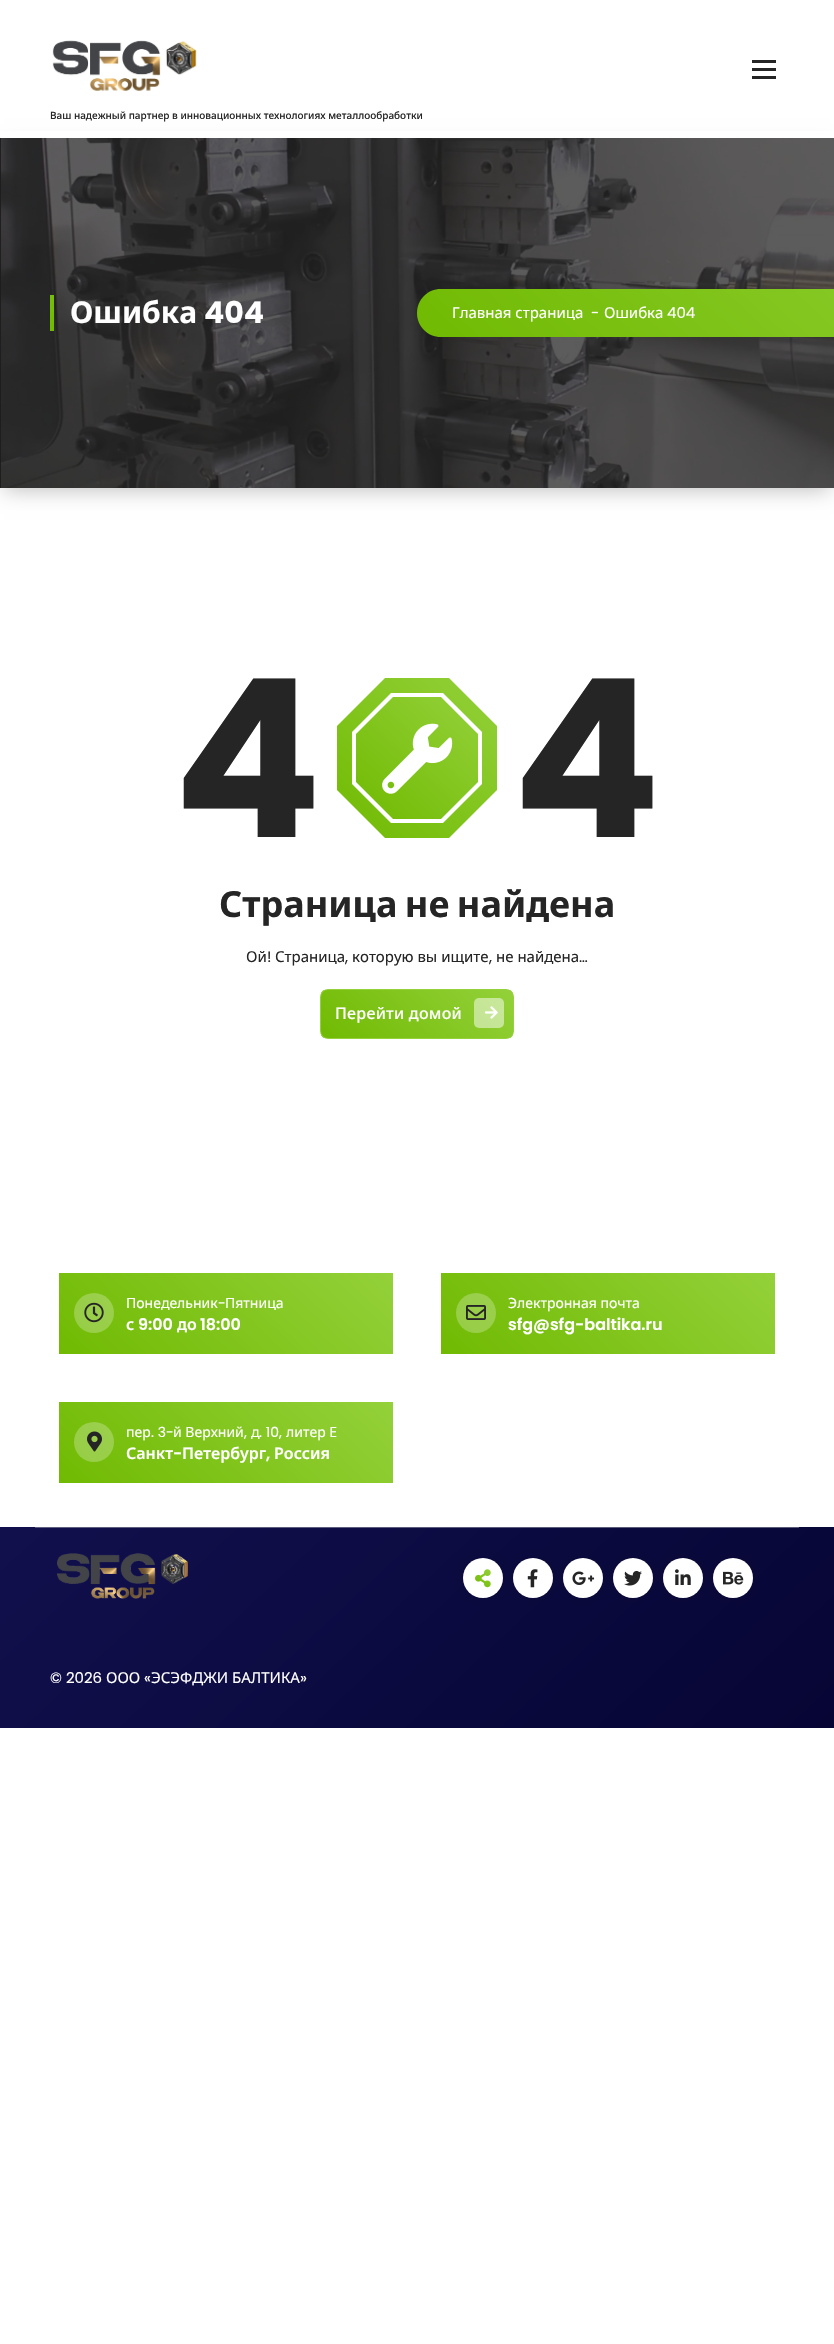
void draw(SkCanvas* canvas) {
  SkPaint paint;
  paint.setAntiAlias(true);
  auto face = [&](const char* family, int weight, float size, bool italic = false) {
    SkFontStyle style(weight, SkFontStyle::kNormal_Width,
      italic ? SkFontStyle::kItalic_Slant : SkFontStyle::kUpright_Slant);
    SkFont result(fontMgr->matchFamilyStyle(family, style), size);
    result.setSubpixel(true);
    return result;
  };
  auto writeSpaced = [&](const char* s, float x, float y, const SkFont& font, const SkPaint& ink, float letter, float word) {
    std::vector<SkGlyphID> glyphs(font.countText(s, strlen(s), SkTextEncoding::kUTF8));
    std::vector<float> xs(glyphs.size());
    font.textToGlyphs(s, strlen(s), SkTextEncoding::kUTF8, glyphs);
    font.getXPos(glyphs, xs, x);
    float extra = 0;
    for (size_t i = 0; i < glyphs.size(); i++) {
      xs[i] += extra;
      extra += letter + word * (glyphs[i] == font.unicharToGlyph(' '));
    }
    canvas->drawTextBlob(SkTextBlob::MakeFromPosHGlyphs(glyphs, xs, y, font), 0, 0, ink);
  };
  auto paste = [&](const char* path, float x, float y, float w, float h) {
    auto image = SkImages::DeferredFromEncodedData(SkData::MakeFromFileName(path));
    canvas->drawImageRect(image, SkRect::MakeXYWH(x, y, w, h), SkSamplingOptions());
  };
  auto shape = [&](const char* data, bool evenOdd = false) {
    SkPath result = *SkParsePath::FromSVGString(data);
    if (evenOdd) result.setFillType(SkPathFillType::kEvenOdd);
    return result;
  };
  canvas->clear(0xffffffff);
  paint.setColor(0x40000000);
  paint.setMaskFilter(SkMaskFilter::MakeBlur(kNormal_SkBlurStyle, 10));
  canvas->drawRect(SkRect::MakeXYWH(4, 148, 826, 342), paint);
  paint.setMaskFilter(nullptr);
  {
    const struct { float x, y, w, h; SkColor color; } items[] = {
      {0, 131, 834, 7, 0xffffffff},
      {752, 60, 24, 3, 0xff252525},
      {752, 68, 24, 3, 0xff252525},
      {752, 76, 24, 3, 0xff252525},
    };
    for (auto [x, y, w, h, color] : items) {
      paint.setColor(color);
      canvas->drawRect(SkRect::MakeXYWH(x, y, w, h), paint);
    }
  }
  paste("img/1.png", 52, 40, 145, 51);
  paste("img/2.png", 0, 138, 834, 350);
  paste("img/3.png", 50, 295, 4, 36);
  {
    const SkColor colors[] = {0xff94d13a, 0xff70ba02};
    const float stops[] = {0, 1};
    const SkPoint ends[] = {{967, 117}, {601, 509}};
    paint.setShader(SkGradientShader::MakeLinear(ends, colors, stops, 2, SkTileMode::kClamp));
    paint.setAlpha(255);
  }
  canvas->drawPath(shape("M441 289H834V337H441C427.5 337 417 326.5 417 313C417 299.5 427.5 289 441 289Z"), paint);
  {
    const SkColor colors[] = {0xff94d13a, 0xff70ba02};
    const float stops[] = {0, 1};
    const SkPoint ends[] = {{494, 675}, {340, 841}};
    paint.setShader(SkGradientShader::MakeLinear(ends, colors, stops, 2, SkTileMode::kClamp));
    paint.setAlpha(255);
  }
  canvas->drawPath(shape("M385 678L337 726V790L385 838H449L497 790V726L449 678Z"), paint);
  paint.setShader(nullptr);
  paint.setColor(0xffffffff);
  canvas->drawPath(shape("M391 693L352 732V784L391 823H443L482 784V732L443 693Z"), paint);
  {
    const SkColor colors[] = {0xff94d13a, 0xff70ba02};
    const float stops[] = {0, 1};
    const SkPoint ends[] = {{476, 695}, {358, 821}};
    paint.setShader(SkGradientShader::MakeLinear(ends, colors, stops, 2, SkTileMode::kClamp));
    paint.setAlpha(255);
  }
  canvas->drawPath(shape("M393 697L356 734V782L393 819H441L478 782V734L441 697Z"), paint);
  paste("img/4.png", 382, 723, 71, 71);
  canvas->save();
  canvas->clipPath(shape("M328 989H506C510.5 989 514 992.5 514 997V1031C514 1035.5 510.5 1039 506 1039H328C323.5 1039 320 1035.5 320 1031V997C320 992.5 323.5 989 328 989Z"), true);
  {
    const SkColor colors[] = {0xff94d13a, 0xff70ba02};
    const float stops[] = {0, 1};
    const SkPoint ends[] = {{474, 953}, {360, 1075}};
    paint.setShader(SkGradientShader::MakeLinear(ends, colors, stops, 2, SkTileMode::kClamp));
    paint.setAlpha(255);
  }
  canvas->drawRect(SkRect::MakeXYWH(321, 990, 192, 48), paint);
  canvas->restore();
  paint.setStroke(true);
  paint.setStrokeWidth(1);
  paint.setShader(nullptr);
  paint.setColor(0xff94d13a);
  canvas->drawRoundRect(SkRect::MakeXYWH(320.5f, 989.5f, 193, 49), 7.5f, 7.5f, paint);
  paint.setStroke(false);
  paint.setColor(0x80ffffff);
  canvas->drawRoundRect(SkRect::MakeXYWH(474, 998, 30, 30), 5, 5, paint);
  paste("img/5.png", 485, 1006, 13, 13);
  {
    const SkColor colors[] = {0xff94d13a, 0xff70ba02};
    const float stops[] = {0, 1};
    const SkPoint ends[] = {{324, 1209}, {128, 1418}};
    paint.setShader(SkGradientShader::MakeLinear(ends, colors, stops, 2, SkTileMode::kClamp));
    paint.setAlpha(255);
  }
  canvas->drawRect(SkRect::MakeXYWH(59, 1273, 334, 81), paint);
  paint.setShader(nullptr);
  paint.setColor(0x40ffffff);
  canvas->drawCircle(94, 1313, 20, paint);
  paste("img/6.png", 84, 1302, 20, 21);
  {
    const SkColor colors[] = {0xff94d13a, 0xff70ba02};
    const float stops[] = {0, 1};
    const SkPoint ends[] = {{706, 1209}, {510, 1418}};
    paint.setShader(SkGradientShader::MakeLinear(ends, colors, stops, 2, SkTileMode::kClamp));
    paint.setAlpha(255);
  }
  canvas->drawRect(SkRect::MakeXYWH(441, 1273, 334, 81), paint);
  paint.setShader(nullptr);
  paint.setColor(0x40ffffff);
  canvas->drawCircle(476, 1313, 20, paint);
  paste("img/7.png", 466, 1305, 20, 15);
  {
    const SkColor colors[] = {0xff94d13a, 0xff70ba02};
    const float stops[] = {0, 1};
    const SkPoint ends[] = {{324, 1338}, {128, 1547}};
    paint.setShader(SkGradientShader::MakeLinear(ends, colors, stops, 2, SkTileMode::kClamp));
    paint.setAlpha(255);
  }
  canvas->drawRect(SkRect::MakeXYWH(59, 1402, 334, 81), paint);
  paint.setShader(nullptr);
  paint.setColor(0x40ffffff);
  canvas->drawCircle(94, 1442, 20, paint);
  paste("img/8.png", 87, 1431, 15, 21);
  {
    const SkColor colors[] = {0xff11104d, 0xff060534};
    const float stops[] = {0, 1};
    const SkPoint ends[] = {{173, 1366}, {661, 1889}};
    paint.setShader(SkGradientShader::MakeLinear(ends, colors, stops, 2, SkTileMode::kClamp));
    paint.setAlpha(255);
  }
  canvas->drawRect(SkRect::MakeXYWH(0, 1527, 834, 201), paint);
  {
    const SkColor colors[] = {0xff5e5e7f, 0xff585872};
    const float stops[] = {0, 1};
    const SkPoint ends[] = {{173, 1366}, {661, 1889}};
    paint.setShader(SkGradientShader::MakeLinear(ends, colors, stops, 2, SkTileMode::kClamp));
    paint.setAlpha(255);
  }
  canvas->drawRect(SkRect::MakeXYWH(35, 1527, 764, 1), paint);
  paste("img/9.png", 57, 1553, 131, 46);
  paint.setShader(nullptr);
  paint.setColor(0x33000000);
  paint.setMaskFilter(SkMaskFilter::MakeBlur(kNormal_SkBlurStyle, 6.5f));
  canvas->drawRoundRect(SkRect::MakeXYWH(465, 1560, 36, 36), 18, 18, paint);
  paint.setMaskFilter(nullptr);
  paint.setColor(0xffffffff);
  canvas->drawCircle(483, 1578, 20, paint);
  paste("img/10.png", 475, 1569, 16, 19);
  paint.setColor(0x33000000);
  paint.setMaskFilter(SkMaskFilter::MakeBlur(kNormal_SkBlurStyle, 6.5f));
  canvas->drawRoundRect(SkRect::MakeXYWH(515, 1560, 36, 36), 18, 18, paint);
  paint.setMaskFilter(nullptr);
  paint.setColor(0xffffffff);
  canvas->drawCircle(533, 1578, 20, paint);
  paste("img/11.png", 527, 1569, 11, 19);
  paint.setColor(0x33000000);
  paint.setMaskFilter(SkMaskFilter::MakeBlur(kNormal_SkBlurStyle, 6.5f));
  canvas->drawRoundRect(SkRect::MakeXYWH(565, 1560, 36, 36), 18, 18, paint);
  paint.setMaskFilter(nullptr);
  paint.setColor(0xffffffff);
  canvas->drawCircle(583, 1578, 20, paint);
  paste("img/12.png", 572, 1571, 23, 14);
  paint.setColor(0x33000000);
  paint.setMaskFilter(SkMaskFilter::MakeBlur(kNormal_SkBlurStyle, 6.5f));
  canvas->drawRoundRect(SkRect::MakeXYWH(615, 1560, 36, 36), 18, 18, paint);
  paint.setMaskFilter(nullptr);
  paint.setColor(0xffffffff);
  canvas->drawCircle(633, 1578, 20, paint);
  paste("img/13.png", 624, 1570, 18, 16);
  paint.setColor(0x33000000);
  paint.setMaskFilter(SkMaskFilter::MakeBlur(kNormal_SkBlurStyle, 6.5f));
  canvas->drawRoundRect(SkRect::MakeXYWH(665, 1560, 36, 36), 18, 18, paint);
  paint.setMaskFilter(nullptr);
  paint.setColor(0xffffffff);
  canvas->drawCircle(683, 1578, 20, paint);
  paste("img/14.png", 675, 1569, 16, 16);
  paint.setColor(0x33000000);
  paint.setMaskFilter(SkMaskFilter::MakeBlur(kNormal_SkBlurStyle, 6.5f));
  canvas->drawRoundRect(SkRect::MakeXYWH(715, 1560, 36, 36), 18, 18, paint);
  paint.setMaskFilter(nullptr);
  paint.setColor(0xffffffff);
  canvas->drawCircle(733, 1578, 20, paint);
  paste("img/15.png", 723, 1571, 21, 14);
  auto f0 = face("Noto Sans", 500, 10);
  paint.setColor(0xff252525);
  canvas->drawString("Ваш надежный партнер в инновационных технологиях металлообработки", 50, 119, f0, paint);
  auto f1 = face("Noto Sans", 700, 30);
  paint.setColor(0xffffffff);
  canvas->drawString("Ошибка", 70, 323, f1, paint);
  auto f2 = face("Poppins", 700, 30);
  canvas->drawString("404", 204, 323, f2, paint);
  auto f3 = face("Noto Sans", 400, 15);
  canvas->drawString("Главная страница", 452, 318, f3, paint);
  auto f4 = face("Poppins", 400, 15);
  canvas->drawString("-", 591, 318, f4, paint);
  canvas->drawString("Ошибка", 604, 318, f3, paint);
  canvas->drawString("404", 667, 318, f4, paint);
  auto f5 = face("Poppins", 700, 220);
  paint.setColor(0xff252525);
  canvas->drawString("4", 173, 837, f5, paint);
  canvas->drawString("4", 512, 837, f5, paint);
  auto f6 = face("Noto Sans", 700, 36);
  writeSpaced("Страница не найдена", 219, 917, f6, paint, 0, -2);
  canvas->drawString("Ой", 246, 962, f3, paint);
  canvas->drawString("!", 267, 962, f4, paint);
  canvas->drawString("Страница", 275, 962, f3, paint);
  canvas->drawString(",", 345, 962, f4, paint);
  canvas->drawString("которую вы ищите", 352, 962, f3, paint);
  canvas->drawString(",", 489, 962, f4, paint);
  canvas->drawString("не найдена", 496, 962, f3, paint);
  canvas->drawString("…", 579, 962, f4, paint);
  auto f7 = face("Noto Sans", 500, 16);
  paint.setColor(0xffffffff);
  writeSpaced("Перейти домой", 335, 1019, f7, paint, 0.25f, 0);
  auto f8 = face("Noto Sans", 400, 14);
  canvas->drawString("Понедельник", 126, 1308, f8, paint);
  auto f9 = face("Poppins", 400, 14);
  canvas->drawString("-", 218, 1308, f9, paint);
  canvas->drawString("Пятница", 225, 1308, f8, paint);
  auto f10 = face("Noto Sans", 600, 16);
  canvas->drawString("с", 126, 1330, f10, paint);
  auto f11 = face("Poppins", 600, 16);
  canvas->drawString("9:00", 138, 1330, f11, paint);
  canvas->drawString("до", 177, 1330, f10, paint);
  canvas->drawString("18:00", 200, 1330, f11, paint);
  canvas->drawString("Электронная почта", 508, 1308, f8, paint);
  canvas->drawString("sfg@sfg-baltika.ru", 508, 1330, f11, paint);
  canvas->drawString("пер", 126, 1437, f8, paint);
  canvas->drawString(". 3-", 151, 1437, f9, paint);
  canvas->drawString("й Верхний", 173, 1437, f8, paint);
  canvas->drawString(",", 244, 1437, f9, paint);
  canvas->drawString("д", 251, 1437, f8, paint);
  canvas->drawString(". 10,", 259, 1437, f9, paint);
  canvas->drawString("литер Е", 286, 1437, f8, paint);
  canvas->drawString("Санкт", 126, 1459, f10, paint);
  canvas->drawString("-", 173, 1459, f11, paint);
  canvas->drawString("Петербург", 182, 1459, f10, paint);
  canvas->drawString("Россия", 274, 1459, f10, paint);
  canvas->drawString(",", 266, 1459, f11, paint);
  canvas->drawString("© 2026", 50, 1683, f4, paint);
  canvas->drawString("ООО", 106, 1683, f3, paint);
  canvas->drawString("«", 144, 1683, f4, paint);
  canvas->drawString("ЭСЭФДЖИ БАЛТИКА", 151, 1683, f3, paint);
  canvas->drawString("»", 300, 1683, f4, paint);
}
